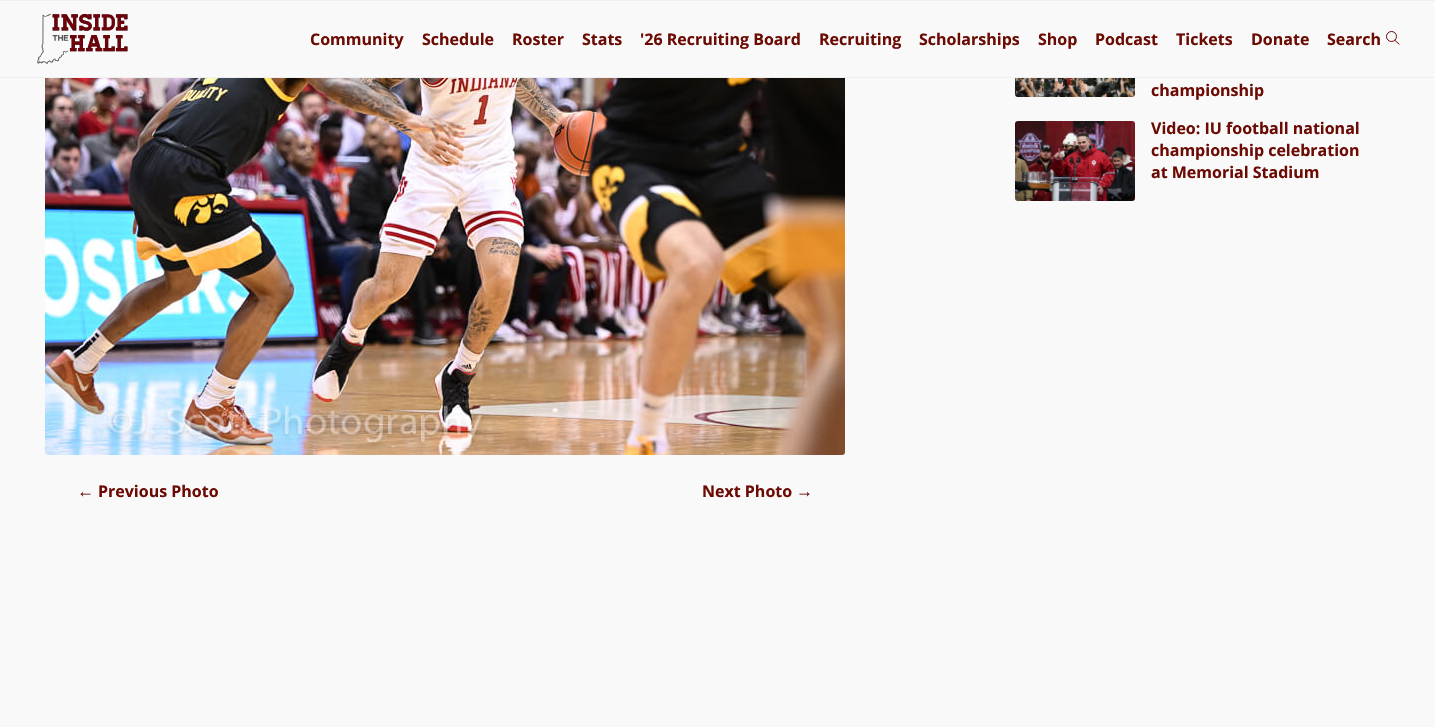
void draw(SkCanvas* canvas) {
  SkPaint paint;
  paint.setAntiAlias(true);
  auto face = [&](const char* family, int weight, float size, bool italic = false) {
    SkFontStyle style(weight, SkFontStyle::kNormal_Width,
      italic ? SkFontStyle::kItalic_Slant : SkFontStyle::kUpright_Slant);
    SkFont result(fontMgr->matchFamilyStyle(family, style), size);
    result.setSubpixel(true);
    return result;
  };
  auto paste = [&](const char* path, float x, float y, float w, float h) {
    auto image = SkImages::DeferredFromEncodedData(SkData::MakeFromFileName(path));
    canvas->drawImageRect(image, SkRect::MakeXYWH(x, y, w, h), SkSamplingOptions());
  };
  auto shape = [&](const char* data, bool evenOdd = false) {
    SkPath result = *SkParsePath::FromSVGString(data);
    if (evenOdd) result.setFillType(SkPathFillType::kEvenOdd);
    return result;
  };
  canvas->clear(0xfff9f9f9);
  paint.setColor(0xffefefef);
  canvas->drawRect(SkRect::MakeXYWH(0, 0, 1435, 1), paint);
  canvas->drawRect(SkRect::MakeXYWH(0, 77, 1435, 1), paint);
  paste("img/1.png", 37, 14, 91, 50);
  paint.setStroke(true);
  paint.setStrokeWidth(1);
  paint.setColor(0xff6b030b);
  canvas->drawCircle(1391.5f, 36.5f, 5, paint);
  paint.setStrokeCap(SkPaint::kSquare_Cap);
  canvas->drawPath(shape("M1395 40.5L1399 44"), paint);
  paste("img/2.png", 1015, 78, 120, 19);
  paste("img/3.png", 1015, 121, 120, 80);
  paste("img/4.png", 45, 78, 800, 377);
  auto f0 = face("Open Sans", 700, 16);
  paint.setStroke(false);
  paint.setColor(0xff6b0b03);
  {
    const struct { const char* s; float x, y; } items[] = {
      {"Community", 310, 45},
      {"Schedule", 422, 45},
      {"Roster", 512, 45},
      {"Stats", 582, 45},
      {"'26 Recruiting Board", 640, 45},
      {"Recruiting", 819, 45},
      {"Scholarships", 919, 45},
      {"Shop", 1038, 45},
      {"Podcast", 1095, 45},
      {"Tickets", 1176, 45},
      {"Donate", 1251, 45},
      {"Search", 1327, 45},
      {"championship", 1151, 96},
      {"Video: IU football national", 1151, 134},
      {"championship celebration", 1151, 156},
      {"at Memorial Stadium", 1151, 178},
    };
    for (auto [s, x, y] : items) {
      canvas->drawString(s, x, y, f0, paint);
    }
  }
  auto f1 = face("Liberation Sans", 700, 17);
  canvas->drawString("←", 77, 497, f1, paint);
  canvas->drawString("Previous Photo", 98, 497, f0, paint);
  canvas->drawString("Next Photo", 702, 497, f0, paint);
  canvas->drawString("→", 796, 497, f1, paint);
}
